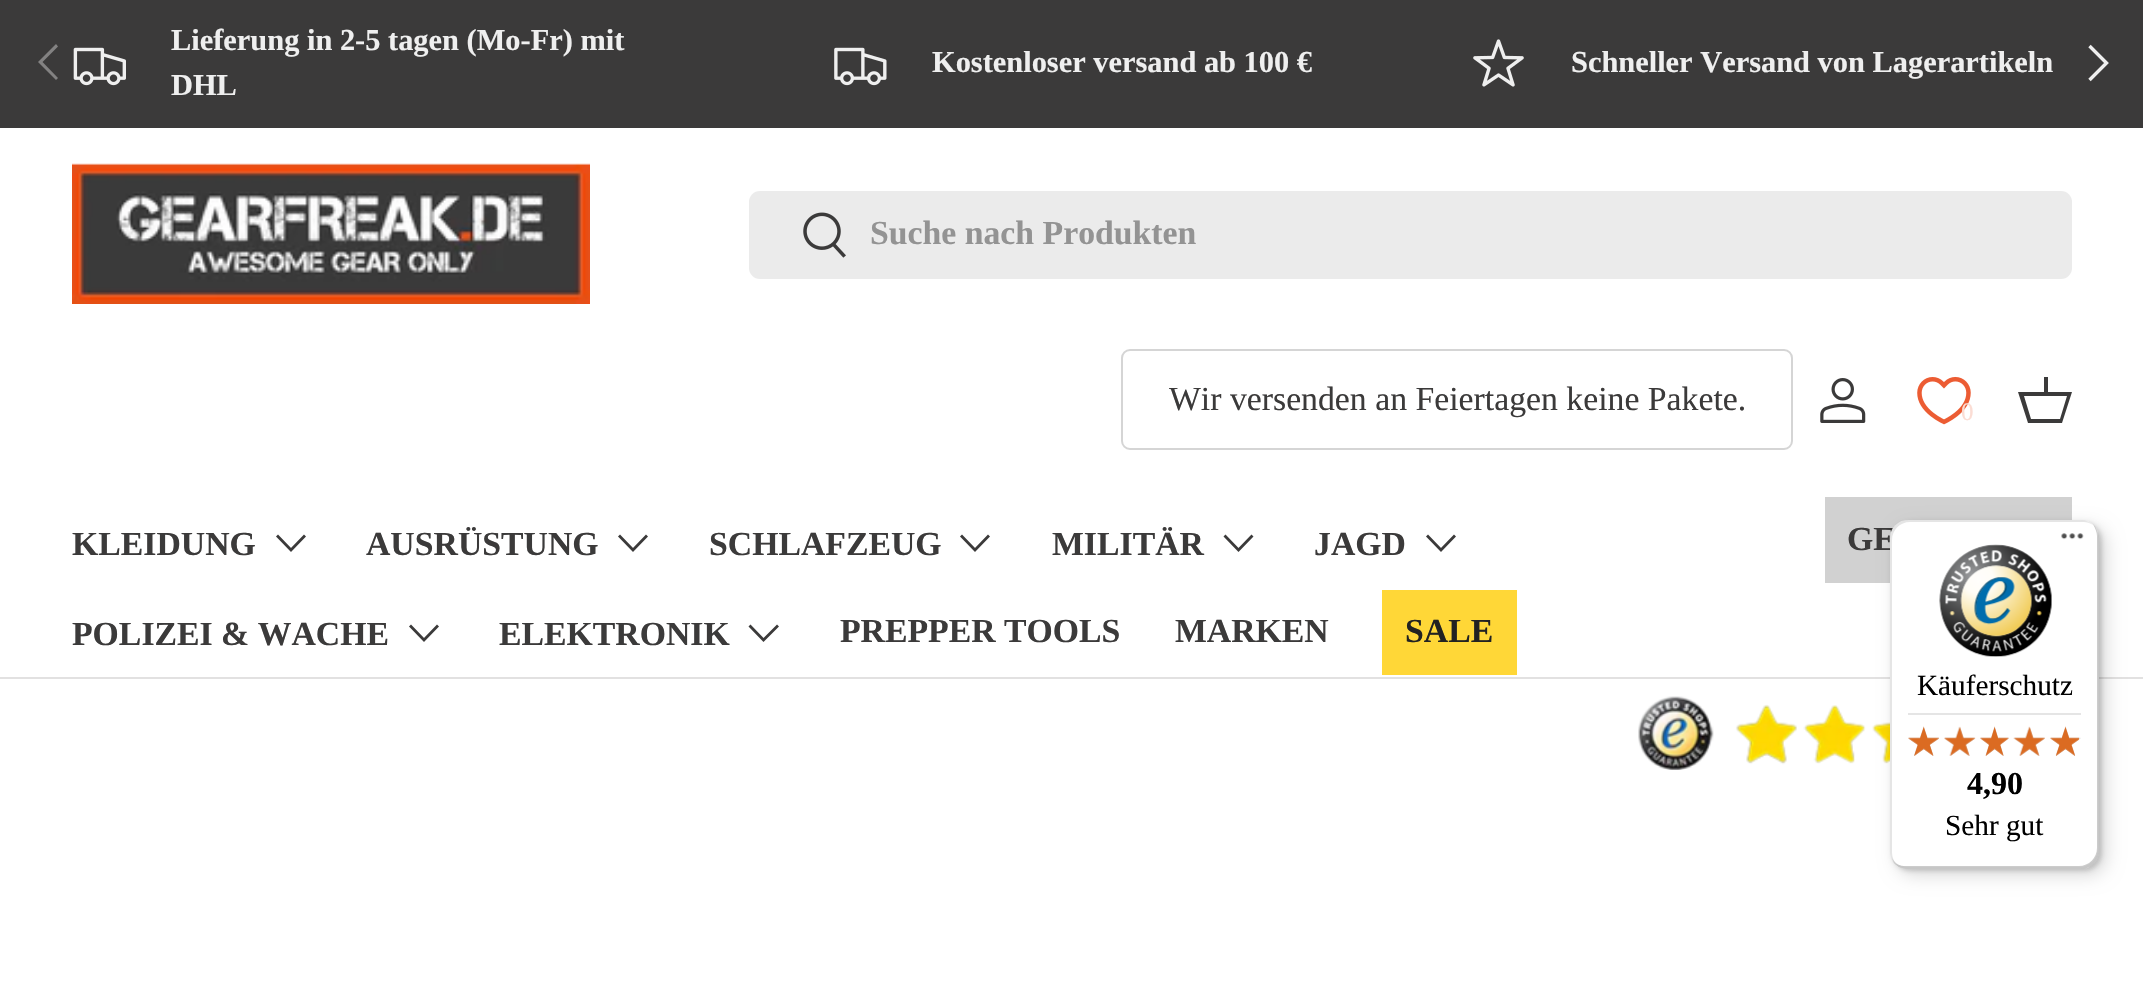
void draw(SkCanvas* canvas) {
  SkPaint paint;
  paint.setAntiAlias(true);
  auto face = [&](const char* family, int weight, float size, bool italic = false) {
    SkFontStyle style(weight, SkFontStyle::kNormal_Width,
      italic ? SkFontStyle::kItalic_Slant : SkFontStyle::kUpright_Slant);
    SkFont result(fontMgr->matchFamilyStyle(family, style), size);
    result.setSubpixel(true);
    return result;
  };
  auto paste = [&](const char* path, float x, float y, float w, float h) {
    auto image = SkImages::DeferredFromEncodedData(SkData::MakeFromFileName(path));
    canvas->drawImageRect(image, SkRect::MakeXYWH(x, y, w, h), SkSamplingOptions());
  };
  auto shape = [&](const char* data, bool evenOdd = false) {
    SkPath result = *SkParsePath::FromSVGString(data);
    if (evenOdd) result.setFillType(SkPathFillType::kEvenOdd);
    return result;
  };
  canvas->clear(0xffffffff);
  paint.setColor(0xff3b3a3a);
  canvas->drawRect(SkRect::MakeXYWH(0, 0, 2143, 128), paint);
  paste("img/1.png", 73, 47, 53, 39);
  paste("img/2.png", 834, 47, 53, 39);
  paste("img/3.png", 1473, 39, 51, 48);
  paint.setColor(0xff838282);
  canvas->drawPath(shape("M38 62L56 44L58 46.5L42.5 62L58 78L56 80Z"), paint);
  paint.setStroke(true);
  paint.setStrokeWidth(3.4f);
  paint.setColor(0xffefefef);
  canvas->drawPath(shape("M2089.5 46L2106.5 63L2089.5 80"), paint);
  paint.setStroke(false);
  paint.setColor(0xffe2e1e1);
  canvas->drawRect(SkRect::MakeXYWH(0, 677, 2143, 2), paint);
  paste("img/4.png", 72, 163, 518, 141);
  paint.setColor(0xffebebeb);
  canvas->drawRoundRect(SkRect::MakeXYWH(749, 191, 1323, 88), 11, 11, paint);
  paste("img/5.png", 803, 212, 43, 46);
  paint.setStroke(true);
  paint.setStrokeWidth(2);
  paint.setColor(0xffd5d5d5);
  canvas->drawRoundRect(SkRect::MakeXYWH(1122, 350, 670, 99), 8, 8, paint);
  paste("img/6.png", 1820, 378, 46, 45);
  paste("img/7.png", 1917, 376, 54, 49);
  paint.setStroke(false);
  paint.setColor(0xff3b3a3a);
  canvas->drawPath(shape("M2044 392V377H2048V392H2072L2062 423H2028L2018 392ZM2024 396L2031 419H2060L2067 396Z"), paint);
  paint.setStroke(true);
  paint.setStrokeWidth(2.8f);
  canvas->drawPath(shape("M305 535.5L291 550L277 535.5"), paint);
  canvas->drawPath(shape("M647 535.5L633 550L619 535.5"), paint);
  canvas->drawPath(shape("M989 535.5L975 550L961 535.5"), paint);
  canvas->drawPath(shape("M1252.5 535.5L1238.5 550L1224.5 535.5"), paint);
  canvas->drawPath(shape("M1455 535.5L1441 550L1427 535.5"), paint);
  canvas->drawPath(shape("M438 625.5L424 640L410 625.5"), paint);
  canvas->drawPath(shape("M778 625.5L763.5 640L749.5 625.5"), paint);
  paint.setStroke(false);
  paint.setColor(0xffffd737);
  canvas->drawRect(SkRect::MakeXYWH(1382, 590, 135, 85), paint);
  paint.setColor(0xffd1d1d1);
  canvas->drawRect(SkRect::MakeXYWH(1825, 497, 247, 86), paint);
  paste("img/8.png", 1638, 696, 252, 74);
  paint.setColor(0x26000000);
  paint.setMaskFilter(SkMaskFilter::MakeBlur(kNormal_SkBlurStyle, 9));
  canvas->drawRoundRect(SkRect::MakeXYWH(1897, 527, 209, 348), 18, 18, paint);
  paint.setMaskFilter(nullptr);
  paint.setMaskFilter(SkMaskFilter::MakeBlur(kNormal_SkBlurStyle, 2));
  canvas->drawRoundRect(SkRect::MakeXYWH(1892, 522, 210, 349), 18, 18, paint);
  paint.setMaskFilter(nullptr);
  auto f0 = face("Liberation Serif", 700, 30.4f);
  paint.setColor(0xffefefef);
  {
    const struct { const char* s; float x, y; } items[] = {
      {"Lieferung in 2-5 tagen (Mo-Fr) mit", 171, 50},
      {"DHL", 171, 95},
      {"Kostenloser versand ab 100 €", 932, 72},
      {"Schneller Versand von Lagerartikeln", 1571, 72},
    };
    for (auto [s, x, y] : items) {
      canvas->drawString(s, x, y, f0, paint);
    }
  }
  auto f1 = face("Liberation Serif", 700, 33.75f);
  paint.setColor(0xff939393);
  canvas->drawString("Suche nach Produkten", 870, 244, f1, paint);
  auto f2 = face("Liberation Serif", 400, 33.75f);
  paint.setColor(0xff3b3a3a);
  canvas->drawString("Wir versenden an Feiertagen keine Pakete.", 1169, 410, f2, paint);
  auto f3 = face("Liberation Serif", 400, 25);
  paint.setColor(0xfffbddd4);
  canvas->drawString("0", 1961, 420, f3, paint);
  paint.setColor(0xff3b3a3a);
  {
    const struct { const char* s; float x, y; } items[] = {
      {"KLEIDUNG", 72, 555},
      {"AUSRÜSTUNG", 366, 555},
      {"SCHLAFZEUG", 709, 555},
      {"MILITÄR", 1052, 555},
      {"JAGD", 1314, 555},
      {"POLIZEI & WACHE", 72, 645},
      {"ELEKTRONIK", 499, 645},
      {"PREPPER TOOLS", 840, 642},
      {"MARKEN", 1175, 642},
    };
    for (auto [s, x, y] : items) {
      canvas->drawString(s, x, y, f1, paint);
    }
  }
  paint.setColor(0xff222222);
  canvas->drawString("SALE", 1405, 642, f1, paint);
  paint.setColor(0xff3b3a3a);
  canvas->drawString("GE", 1847, 550, f1, paint);
  paint.setColor(0xffffffff);
  canvas->drawRoundRect(SkRect::MakeXYWH(1890, 520, 209, 349), 18, 18, paint);
  paint.setColor(0x1a000000);
  canvas->drawPath(shape("M1910 522H2084C2087 522 2090 523 2093 525C2090 522 2086 520 2081 520H1908C1898 520 1890 528 1890 538V851C1890 856 1892 861 1896 865C1894 861 1892 857 1892 853V540C1892 530 1900 522 1910 522Z"), paint);
  paint.setColor(0x33000000);
  canvas->drawPath(shape("M1892 860C1895 865 1901 869 1908 869H2081C2091 869 2099 861 2099 851V538C2099 533 2097 528 2093 524C2095 528 2097 532 2097 536V848C2097 858 2089 866 2079 866H1906C1900 866 1895 864 1892 860Z"), paint);
  paint.setColor(0x33323232);
  canvas->drawPath(shape("M1892 858C1894 865 1901 869 1908 869H2081C2091 869 2099 861 2099 851V538C2099 535 2098 532 2097 529C2098 531 2098 534 2098 536V849C2098 859 2090 867 2080 867H1907C1900 867 1895 863 1892 858Z"), paint);
  paint.setColor(0x4dffffff);
  canvas->drawPath(shape("M1892 858C1894 865 1901 869 1908 869H2081C2091 869 2099 861 2099 851V538C2099 533 2097 528 2094 525C2096 528 2098 532 2098 537V849C2098 859 2090 867 2080 867H1907C1900 867 1895 863 1892 858Z"), paint);
  paste("img/9.png", 2061, 533, 23, 7);
  paste("img/10.png", 1939, 544, 113, 113);
  auto f4 = face("Liberation Serif", 400, 29.25f);
  paint.setColor(0xff000000);
  canvas->drawString("Käuferschutz", 1917, 695, f4, paint);
  paint.setColor(0xffe5e5e5);
  canvas->drawRect(SkRect::MakeXYWH(1908, 713, 173, 2), paint);
  paste("img/11.png", 1908, 726, 31, 30);
  paste("img/12.png", 1944, 727, 31, 29);
  paste("img/13.png", 1980, 726, 29, 30);
  paste("img/14.png", 2013, 727, 32, 29);
  paste("img/15.png", 2050, 726, 31, 30);
  paste("img/16.png", 1908, 726, 31, 30);
  paste("img/17.png", 1944, 726, 32, 30);
  paste("img/18.png", 1980, 726, 29, 30);
  paste("img/19.png", 2013, 726, 32, 30);
  paste("img/20.png", 2050, 726, 29, 30);
  auto f5 = face("Liberation Serif", 700, 32);
  paint.setColor(0xff000000);
  canvas->drawString("4,90", 1967, 794, f5, paint);
  canvas->drawString("Sehr gut", 1945, 835, f4, paint);
}
